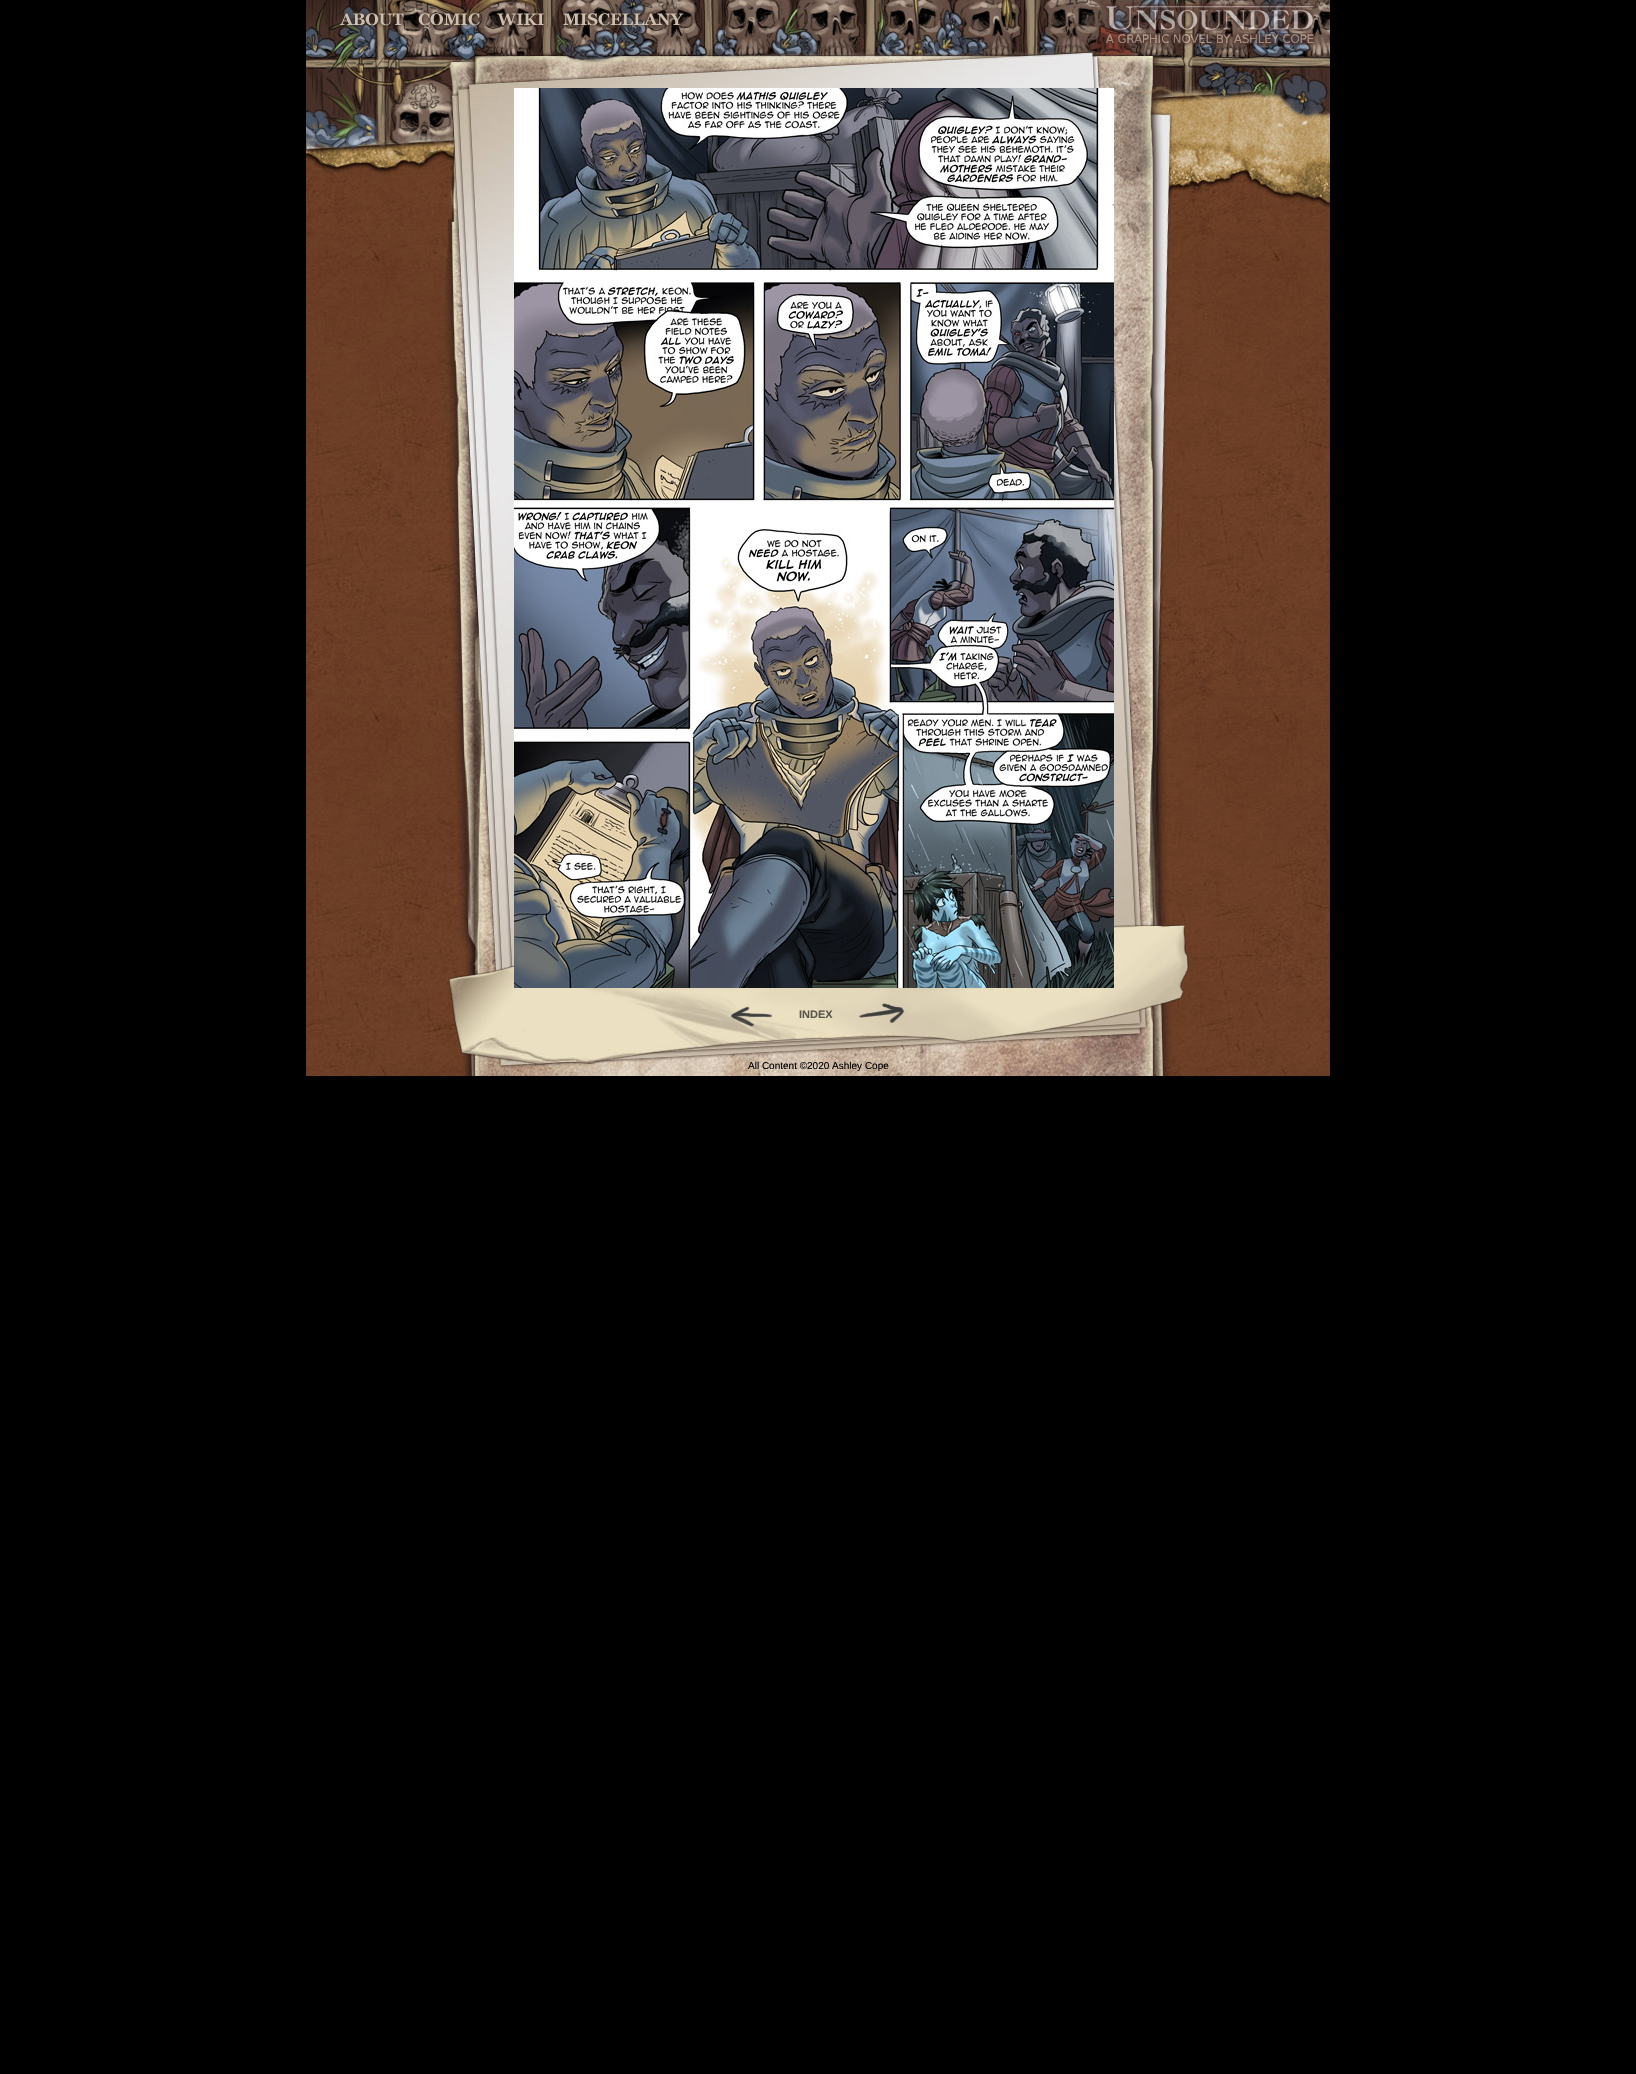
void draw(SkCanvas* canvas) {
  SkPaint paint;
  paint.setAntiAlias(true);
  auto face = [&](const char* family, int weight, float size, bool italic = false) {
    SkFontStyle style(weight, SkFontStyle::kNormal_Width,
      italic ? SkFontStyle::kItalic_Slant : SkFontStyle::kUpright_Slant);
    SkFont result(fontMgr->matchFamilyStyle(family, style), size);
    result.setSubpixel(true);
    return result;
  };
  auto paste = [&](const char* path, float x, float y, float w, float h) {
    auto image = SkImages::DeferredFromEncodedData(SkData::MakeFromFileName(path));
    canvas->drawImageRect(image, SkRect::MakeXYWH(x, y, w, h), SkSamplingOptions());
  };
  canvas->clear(0xff000000);
  paste("img/1.png", 306, 0, 1024, 88);
  paste("img/2.png", 338, 10, 69, 19);
  paste("img/3.png", 416, 10, 66, 19);
  paste("img/4.png", 495, 10, 51, 19);
  paste("img/5.png", 562, 10, 123, 19);
  paste("img/6.png", 1103, 2, 214, 45);
  paste("img/7.png", 306, 88, 208, 900);
  paste("img/8.png", 514, 88, 600, 900);
  paste("img/9.png", 1114, 88, 216, 900);
  paste("img/10.png", 306, 988, 1024, 88);
  paste("img/11.png", 730, 1006, 43, 21);
  paste("img/12.png", 858, 1003, 47, 20);
  auto f0 = face("Liberation Sans", 700, 11);
  paint.setColor(0xff5a564a);
  canvas->drawString("INDEX", 799, 1018, f0, paint);
  auto f1 = face("Liberation Sans", 400, 10);
  paint.setColor(0xff000000);
  canvas->drawString("All Content ©2020 Ashley Cope", 748, 1069, f1, paint);
}
